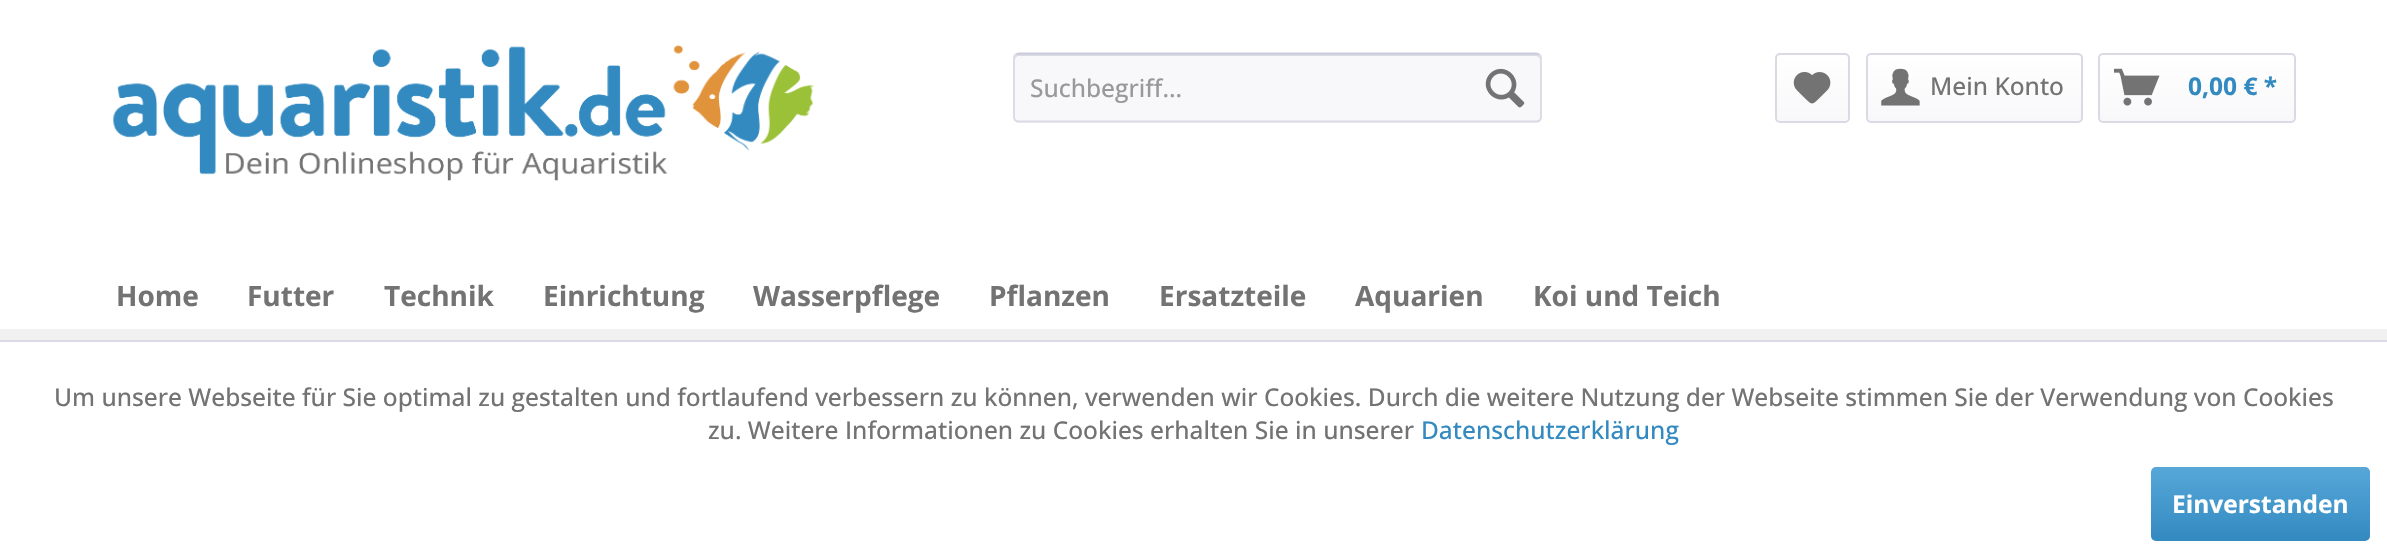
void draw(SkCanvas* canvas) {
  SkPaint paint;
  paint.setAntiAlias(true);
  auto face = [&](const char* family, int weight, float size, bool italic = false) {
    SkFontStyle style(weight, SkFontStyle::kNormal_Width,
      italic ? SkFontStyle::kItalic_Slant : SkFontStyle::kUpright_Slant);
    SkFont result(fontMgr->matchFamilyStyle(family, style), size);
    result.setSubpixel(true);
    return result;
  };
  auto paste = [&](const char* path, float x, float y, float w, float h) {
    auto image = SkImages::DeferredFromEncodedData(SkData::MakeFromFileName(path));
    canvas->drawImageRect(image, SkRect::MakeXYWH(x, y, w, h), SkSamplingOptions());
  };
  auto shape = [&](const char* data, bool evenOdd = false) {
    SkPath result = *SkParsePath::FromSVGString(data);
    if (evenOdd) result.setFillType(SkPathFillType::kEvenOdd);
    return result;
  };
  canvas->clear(0xfff1f1f1);
  paint.setColor(0xffffffff);
  canvas->drawRect(SkRect::MakeXYWH(0, 0, 2387, 329), paint);
  paste("img/1.png", 113, 45, 701, 136);
  paint.setColor(0xfff8f8fa);
  canvas->drawRoundRect(SkRect::MakeXYWH(1013, 53, 529, 70), 5, 5, paint);
  paint.setColor(0xffdadae5);
  canvas->drawPath(shape("M1018 56H1536C1538 56 1540 58 1540 60V58C1540 56 1538 54 1536 54H1019C1017 54 1015 56 1015 58V60C1015 58 1017 56 1018 56Z"), paint);
  paint.setStroke(true);
  paint.setStrokeWidth(1.8f);
  paint.setColor(0xffcbcbdb);
  canvas->drawPath(shape("M1015.5 54.5L1018.5 53.5H1536.5L1539.5 54.5"), paint);
  paint.setColor(0xffdadae5);
  canvas->drawPath(shape("M1539.5 54.5C1540.5 55.5 1541 56.5 1541 58V117C1541 118.5 1540.5 119.5 1539.5 120.5C1539 121 1537.5 121.5 1536.5 121.5H1018.5C1017.5 121.5 1016 121 1015.5 120.5C1014.5 119.5 1014 118.5 1014 117V58C1014 56.5 1014.5 55.5 1015.5 54.5"), paint);
  paste("img/2.png", 1485, 68, 40, 40);
  paint.setStroke(false);
  {
    const SkColor colors[] = {0xffffffff, 0xfff8f8fa};
    const float stops[] = {0, 1};
    const SkPoint ends[] = {{1812, 54}, {1812, 121}};
    paint.setShader(SkGradientShader::MakeLinear(ends, colors, stops, 2, SkTileMode::kClamp));
    paint.setAlpha(255);
  }
  canvas->drawRoundRect(SkRect::MakeXYWH(1776, 54, 72, 67), 4, 4, paint);
  paint.setStroke(true);
  paint.setStrokeWidth(2);
  paint.setShader(nullptr);
  paint.setColor(0xffdadae5);
  canvas->drawRoundRect(SkRect::MakeXYWH(1776, 54, 73, 68), 4, 4, paint);
  paste("img/3.png", 1793, 72, 38, 32);
  paint.setStroke(false);
  {
    const SkColor colors[] = {0xffffffff, 0xfff8f8fa};
    const float stops[] = {0, 1};
    const SkPoint ends[] = {{1974, 54}, {1974, 121}};
    paint.setShader(SkGradientShader::MakeLinear(ends, colors, stops, 2, SkTileMode::kClamp));
    paint.setAlpha(255);
  }
  canvas->drawRoundRect(SkRect::MakeXYWH(1867, 54, 214, 67), 4, 4, paint);
  paint.setStroke(true);
  paint.setShader(nullptr);
  paint.setColor(0xffdadae5);
  canvas->drawRoundRect(SkRect::MakeXYWH(1867, 54, 215, 68), 4, 4, paint);
  paste("img/4.png", 1881, 68, 39, 38);
  paint.setStroke(false);
  {
    const SkColor colors[] = {0xffffffff, 0xfff8f8fa};
    const float stops[] = {0, 1};
    const SkPoint ends[] = {{2197, 54}, {2197, 121}};
    paint.setShader(SkGradientShader::MakeLinear(ends, colors, stops, 2, SkTileMode::kClamp));
    paint.setAlpha(255);
  }
  canvas->drawRoundRect(SkRect::MakeXYWH(2100, 54, 194, 67), 4, 4, paint);
  paint.setStroke(true);
  paint.setShader(nullptr);
  paint.setColor(0xffdadae5);
  canvas->drawRoundRect(SkRect::MakeXYWH(2099, 54, 196, 68), 4, 4, paint);
  paste("img/5.png", 2114, 68, 46, 38);
  paint.setStroke(false);
  paint.setColor(0xffffffff);
  canvas->drawRect(SkRect::MakeXYWH(0, 342, 2387, 216), paint);
  paint.setColor(0xffdadae5);
  canvas->drawRect(SkRect::MakeXYWH(0, 340, 2387, 2), paint);
  {
    const SkColor colors[] = {0xff57a7d9, 0xff338ac0};
    const float stops[] = {0, 1};
    const SkPoint ends[] = {{2260, 467}, {2260, 541}};
    paint.setShader(SkGradientShader::MakeLinear(ends, colors, stops, 2, SkTileMode::kClamp));
    paint.setAlpha(255);
  }
  canvas->drawRoundRect(SkRect::MakeXYWH(2151, 467, 219, 74), 5, 5, paint);
  auto f0 = face("Open Sans", 500, 24.5f);
  paint.setShader(nullptr);
  paint.setColor(0xff9a999a);
  canvas->drawString("Suchbegriff...", 1030, 97, f0, paint);
  paint.setColor(0xff747374);
  canvas->drawString("Mein Konto", 1930, 95, f0, paint);
  auto f1 = face("Open Sans", 700, 24.5f);
  paint.setColor(0xff338ac0);
  canvas->drawString("0,00 € *", 2188, 95, f1, paint);
  auto f2 = face("Open Sans", 700, 28);
  paint.setColor(0xff747374);
  {
    const struct { const char* s; float x, y; } items[] = {
      {"Home", 116, 306},
      {"Futter", 247, 306},
      {"Technik", 384, 306},
      {"Einrichtung", 543, 306},
      {"Wasserpflege", 753, 306},
      {"Pflanzen", 989, 306},
      {"Ersatzteile", 1159, 306},
      {"Aquarien", 1355, 306},
      {"Koi und Teich", 1533, 306},
    };
    for (auto [s, x, y] : items) {
      canvas->drawString(s, x, y, f2, paint);
    }
  }
  canvas->drawString("Um unsere Webseite für Sie optimal zu gestalten und fortlaufend verbessern zu können, verwenden wir Cookies. Durch die weitere Nutzung der Webseite stimmen Sie der Verwendung von Cookies", 54, 406, f0, paint);
  canvas->drawString("zu. Weitere Informationen zu Cookies erhalten Sie in unserer", 708, 439, f0, paint);
  paint.setColor(0xff338ac0);
  canvas->drawString("Datenschutzerklärung", 1421, 439, f0, paint);
  paint.setColor(0xffffffff);
  canvas->drawString("Einverstanden", 2172, 513, f1, paint);
}
